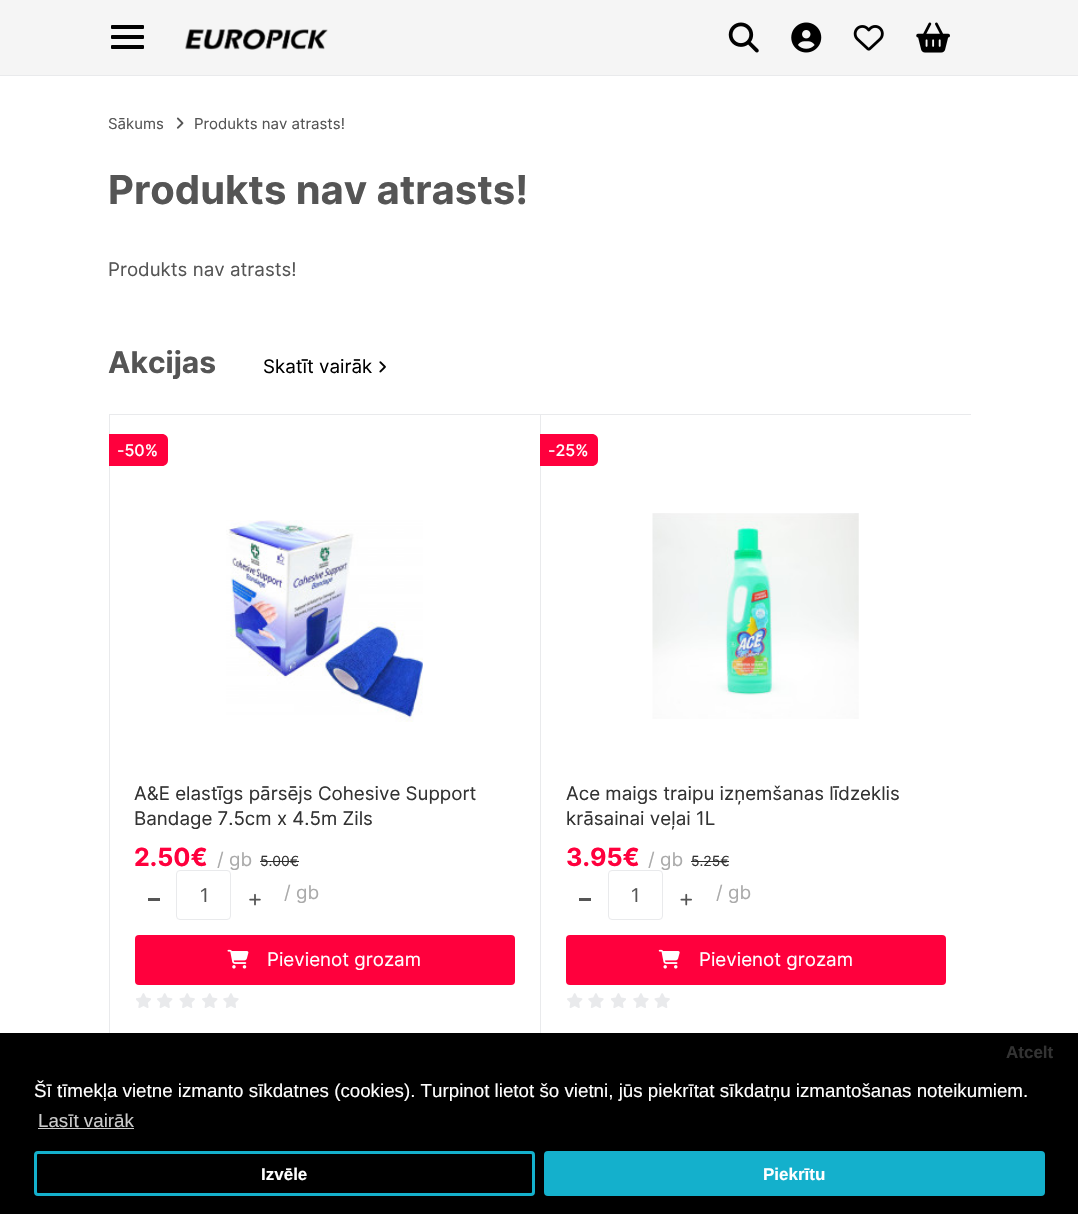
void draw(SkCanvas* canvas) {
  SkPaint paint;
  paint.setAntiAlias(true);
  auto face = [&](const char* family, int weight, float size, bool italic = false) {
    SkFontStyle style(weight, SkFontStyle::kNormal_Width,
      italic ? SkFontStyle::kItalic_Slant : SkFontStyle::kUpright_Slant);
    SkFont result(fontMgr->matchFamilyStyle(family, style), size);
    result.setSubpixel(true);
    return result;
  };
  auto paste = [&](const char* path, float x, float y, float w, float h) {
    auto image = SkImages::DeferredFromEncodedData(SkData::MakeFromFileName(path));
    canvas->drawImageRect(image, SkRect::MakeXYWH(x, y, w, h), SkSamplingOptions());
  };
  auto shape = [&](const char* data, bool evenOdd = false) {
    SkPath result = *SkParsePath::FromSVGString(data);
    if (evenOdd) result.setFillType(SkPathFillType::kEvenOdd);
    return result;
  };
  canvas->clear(0xffffffff);
  paint.setColor(0xfff5f5f5);
  canvas->drawRect(SkRect::MakeXYWH(0, 0, 1078, 75), paint);
  paint.setColor(0xff000000);
  canvas->drawRoundRect(SkRect::MakeXYWH(111, 25, 33, 4), 1, 1, paint);
  canvas->drawRoundRect(SkRect::MakeXYWH(111, 35, 33, 4), 1, 1, paint);
  canvas->drawRoundRect(SkRect::MakeXYWH(111, 45, 33, 4), 1, 1, paint);
  paste("img/1.png", 185, 28, 143, 22);
  paste("img/2.png", 728, 22, 31, 31);
  paste("img/3.png", 791, 22, 31, 31);
  paste("img/4.png", 853, 25, 31, 26);
  paste("img/5.png", 916, 22, 34, 31);
  paint.setColor(0xffe9eaec);
  canvas->drawRect(SkRect::MakeXYWH(0, 75, 1078, 1), paint);
  paste("img/6.png", 176, 117, 8, 12);
  paste("img/7.png", 379, 361, 7, 12);
  canvas->drawRect(SkRect::MakeXYWH(109, 414, 862, 1), paint);
  canvas->drawRect(SkRect::MakeXYWH(109, 414, 1, 619), paint);
  paint.setColor(0xffff003d);
  canvas->drawPath(shape("M109 434H162C165.5 434 168 436.5 168 440V460C168 463.5 165.5 466 162 466H109Z"), paint);
  paste("img/8.png", 226, 520, 197, 202);
  paint.setColor(0xff555555);
  canvas->drawRect(SkRect::MakeXYWH(148, 898, 12, 3), paint);
  paste("img/9.png", 249, 893, 12, 13);
  paint.setColor(0xffff003d);
  canvas->drawRoundRect(SkRect::MakeXYWH(135, 935, 380, 50), 4, 4, paint);
  paste("img/10.png", 227, 949, 22, 20);
  paste("img/11.png", 136, 993, 15, 15);
  paste("img/12.png", 157, 993, 16, 15);
  paste("img/13.png", 179, 993, 16, 15);
  paste("img/12.png", 202, 993, 16, 15);
  paste("img/14.png", 223, 993, 16, 15);
  paint.setColor(0xffe9eaec);
  canvas->drawRect(SkRect::MakeXYWH(540, 414, 1, 619), paint);
  paint.setColor(0xffff003d);
  canvas->drawPath(shape("M540 434H592C595.5 434 598 436.5 598 440V460C598 463.5 595.5 466 592 466H540Z"), paint);
  paste("img/15.png", 652, 513, 207, 206);
  paint.setColor(0xff555555);
  canvas->drawRect(SkRect::MakeXYWH(579, 898, 12, 3), paint);
  paste("img/16.png", 680, 893, 12, 13);
  paint.setColor(0xffff003d);
  canvas->drawRoundRect(SkRect::MakeXYWH(566, 935, 380, 50), 4, 4, paint);
  paste("img/17.png", 658, 949, 22, 20);
  paste("img/12.png", 567, 993, 16, 15);
  paste("img/14.png", 588, 993, 16, 15);
  paste("img/11.png", 611, 993, 15, 15);
  paste("img/14.png", 633, 993, 16, 15);
  paste("img/13.png", 654, 993, 16, 15);
  paint.setColor(0xff000000);
  canvas->drawRect(SkRect::MakeXYWH(0, 1033, 1078, 181), paint);
  paint.setStroke(true);
  paint.setStrokeWidth(3);
  paint.setColor(0xff14b0cc);
  canvas->drawRoundRect(SkRect::MakeXYWH(35.5f, 1152.5f, 498, 42), 2.5f, 2.5f, paint);
  paint.setStroke(false);
  canvas->drawRoundRect(SkRect::MakeXYWH(544, 1151, 501, 45), 4, 4, paint);
  paint.setColor(0xffcccccc);
  canvas->drawRect(SkRect::MakeXYWH(38, 1128, 96, 1), paint);
  auto f0 = face("Inter", 400, 15);
  paint.setColor(0xff555555);
  canvas->drawString("Sākums", 108, 129, f0, paint);
  canvas->drawString("Produkts nav atrasts!", 194, 129, f0, paint);
  auto f1 = face("Inter", 700, 40);
  canvas->drawString("Produkts nav atrasts!", 108, 204, f1, paint);
  auto f2 = face("Inter", 400, 18.75f);
  canvas->drawString("Produkts nav atrasts!", 108, 276, f2, paint);
  auto f3 = face("Inter", 700, 30);
  canvas->drawString("Akcijas", 108, 373, f3, paint);
  paint.setColor(0xff000000);
  canvas->drawString("Skatīt vairāk", 263, 373, f2, paint);
  auto f4 = face("Inter", 500, 16);
  paint.setColor(0xffffffff);
  canvas->drawString("-50%", 117, 456, f4, paint);
  paint.setColor(0xff333333);
  canvas->drawString("A&E elastīgs pārsējs Cohesive Support", 134, 800, f2, paint);
  canvas->drawString("Bandage 7.5cm x 4.5m Zils", 134, 825, f2, paint);
  auto f5 = face("Inter", 700, 25);
  paint.setColor(0xffff003d);
  canvas->drawString("2.50€", 134, 866, f5, paint);
  paint.setColor(0xffaaaaaa);
  canvas->drawString("/ gb", 217, 866, f2, paint);
  auto f6 = face("Inter", 400, 14);
  paint.setColor(0xff333333);
  canvas->drawString("5.00€", 260, 866, f6, paint);
  paint.setColor(0xff2e2e2e);
  canvas->drawRect(SkRect::MakeXYWH(260, 861, 39, 1), paint);
  paint.setStroke(true);
  paint.setStrokeWidth(1);
  paint.setColor(0xffe9eaec);
  canvas->drawRoundRect(SkRect::MakeXYWH(176.5f, 870.5f, 54, 49), 3.5f, 3.5f, paint);
  paint.setStroke(false);
  paint.setColor(0xff555555);
  canvas->drawString("1", 200, 902, f2, paint);
  paint.setColor(0xffaaaaaa);
  canvas->drawString("/ gb", 284, 899, f2, paint);
  paint.setColor(0xffffffff);
  canvas->drawString("Pievienot grozam", 267, 966, f2, paint);
  canvas->drawString("-25%", 548, 456, f4, paint);
  paint.setColor(0xff333333);
  canvas->drawString("Ace maigs traipu izņemšanas līdzeklis", 566, 800, f2, paint);
  canvas->drawString("krāsainai veļai 1L", 566, 825, f2, paint);
  paint.setColor(0xffff003d);
  canvas->drawString("3.95€", 566, 866, f5, paint);
  paint.setColor(0xffaaaaaa);
  canvas->drawString("/ gb", 648, 866, f2, paint);
  paint.setColor(0xff333333);
  canvas->drawString("5.25€", 691, 866, f6, paint);
  paint.setColor(0xff2e2e2e);
  canvas->drawRect(SkRect::MakeXYWH(691, 861, 38, 1), paint);
  paint.setStroke(true);
  paint.setColor(0xffe9eaec);
  canvas->drawRoundRect(SkRect::MakeXYWH(608.5f, 870.5f, 54, 49), 3.5f, 3.5f, paint);
  paint.setStroke(false);
  paint.setColor(0xff555555);
  canvas->drawString("1", 631, 902, f2, paint);
  paint.setColor(0xffaaaaaa);
  canvas->drawString("/ gb", 716, 899, f2, paint);
  paint.setColor(0xffffffff);
  canvas->drawString("Pievienot grozam", 699, 966, f2, paint);
  auto f7 = face("Liberation Sans", 700, 17);
  paint.setColor(0xff333333);
  canvas->drawString("Atcelt", 1006, 1058, f7, paint);
  paint.setColor(0xffffffff);
  canvas->drawString("Izvēle", 261, 1180, f7, paint);
  canvas->drawString("Piekrītu", 763, 1180, f7, paint);
  auto f8 = face("Liberation Sans", 400, 18.75f);
  canvas->drawString("Šī tīmekļa vietne izmanto sīkdatnes (cookies). Turpinot lietot šo vietni, jūs piekrītat sīkdatņu izmantošanas noteikumiem.", 34, 1097, f8, paint);
  paint.setColor(0xffcccccc);
  canvas->drawString("Lasīt vairāk", 38, 1127, f8, paint);
}
